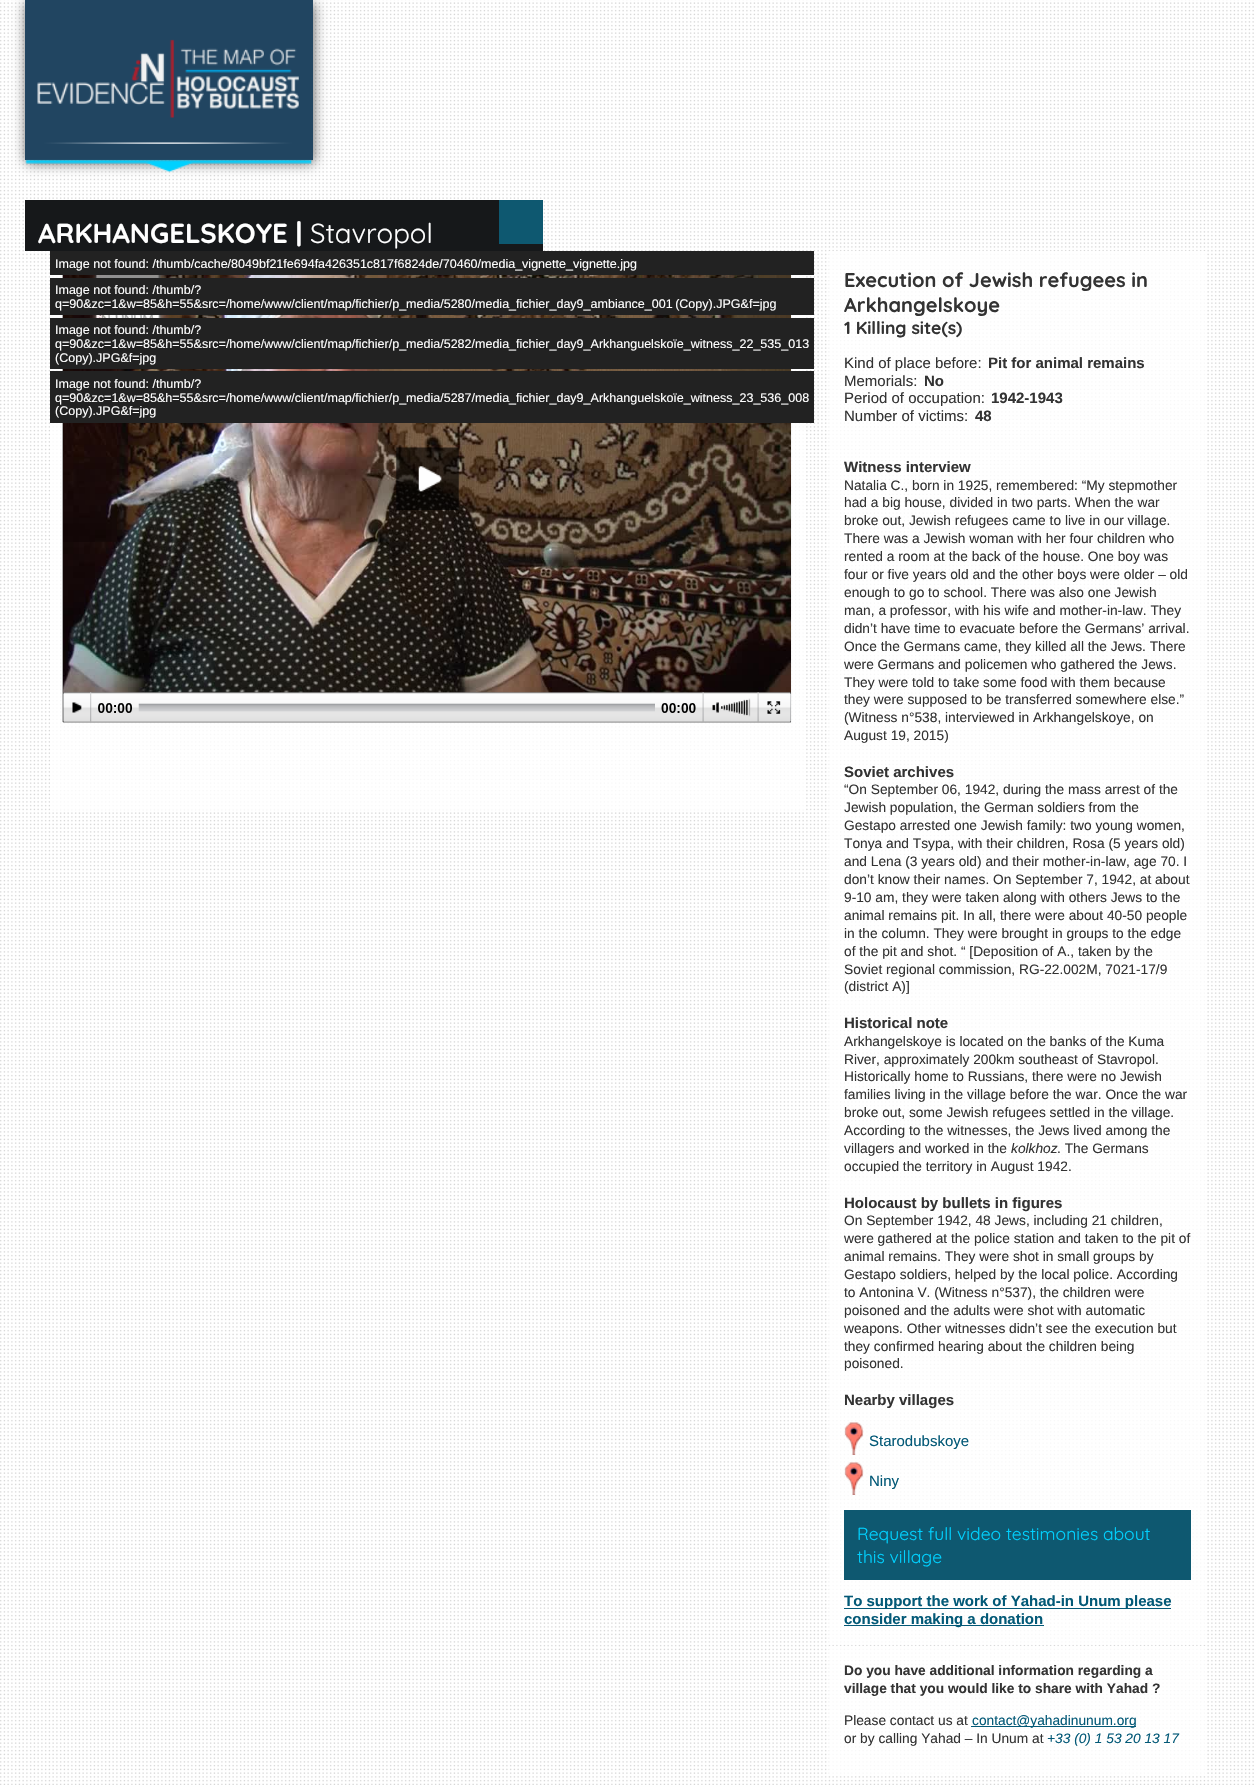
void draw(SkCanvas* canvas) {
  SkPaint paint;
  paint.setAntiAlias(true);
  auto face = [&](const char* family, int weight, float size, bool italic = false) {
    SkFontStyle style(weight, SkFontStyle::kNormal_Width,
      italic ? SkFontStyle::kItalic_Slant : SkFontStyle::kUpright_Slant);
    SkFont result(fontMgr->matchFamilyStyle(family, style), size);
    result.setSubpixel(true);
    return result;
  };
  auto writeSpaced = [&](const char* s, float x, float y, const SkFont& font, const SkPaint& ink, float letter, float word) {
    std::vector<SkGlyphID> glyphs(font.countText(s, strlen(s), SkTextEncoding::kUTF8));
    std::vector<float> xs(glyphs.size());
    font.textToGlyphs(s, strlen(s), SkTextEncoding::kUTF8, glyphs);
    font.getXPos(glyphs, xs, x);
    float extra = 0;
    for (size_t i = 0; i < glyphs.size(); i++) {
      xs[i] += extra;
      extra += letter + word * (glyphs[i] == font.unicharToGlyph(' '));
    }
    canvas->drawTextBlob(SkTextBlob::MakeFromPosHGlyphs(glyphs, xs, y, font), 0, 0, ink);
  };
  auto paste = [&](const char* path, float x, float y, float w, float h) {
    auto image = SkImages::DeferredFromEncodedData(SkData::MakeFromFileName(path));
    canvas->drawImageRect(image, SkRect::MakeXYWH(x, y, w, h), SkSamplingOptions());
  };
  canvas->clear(0xffffffff);
  paste("img/3.png", 0, 0, 1254, 1785);
  paint.setColor(0x99000000);
  paint.setMaskFilter(SkMaskFilter::MakeBlur(kNormal_SkBlurStyle, 6));
  canvas->drawRect(SkRect::MakeXYWH(26, 3, 288, 160), paint);
  paint.setMaskFilter(nullptr);
  paint.setColor(0xff214561);
  canvas->drawRect(SkRect::MakeXYWH(25, 0, 288, 160), paint);
  paste("img/1.png", 37, 39, 262, 105);
  paste("img/2.png", 25, 159, 287, 14);
  {
    const struct { float x, y, w, h; SkColor color; } items[] = {
      {25, 200, 518, 51, 0xff16181a},
      {499, 200, 44, 44, 0xff0e5870},
      {50, 276, 754, 534, 0xccffffff},
      {50, 251, 764, 24, 0xff222222},
    };
    for (auto [x, y, w, h, color] : items) {
      paint.setColor(color);
      canvas->drawRect(SkRect::MakeXYWH(x, y, w, h), paint);
    }
  }
  paste("img/4.png", 62, 275, 730, 448);
  {
    const struct { float x, y, w, h; SkColor color; } items[] = {
      {50, 278, 764, 37, 0xff222222},
      {50, 318, 764, 51, 0xff222222},
      {50, 371, 764, 52, 0xff222222},
      {829, 251, 377, 1392, 0xccffffff},
    };
    for (auto [x, y, w, h, color] : items) {
      paint.setColor(color);
      canvas->drawRect(SkRect::MakeXYWH(x, y, w, h), paint);
    }
  }
  paste("img/5.png", 844, 1422, 20, 33);
  paste("img/6.png", 844, 1462, 20, 33);
  {
    const struct { float x, y, w, h; SkColor color; } items[] = {
      {844, 1510, 347, 70, 0xff0e5870},
      {844, 1608, 327, 1, 0xff035977},
      {844, 1625, 200, 1, 0xff035977},
      {829, 1646, 377, 128, 0xccffffff},
      {971, 1726, 165, 1, 0xff035977},
    };
    for (auto [x, y, w, h, color] : items) {
      paint.setColor(color);
      canvas->drawRect(SkRect::MakeXYWH(x, y, w, h), paint);
    }
  }
  auto f0 = face("Quicksand", 700, 27.5f);
  paint.setColor(0xffffffff);
  canvas->drawString("ARKHANGELSKOYE |", 38, 243, f0, paint);
  auto f1 = face("Quicksand", 400, 27.5f);
  canvas->drawString("Stavropol", 310, 243, f1, paint);
  auto f2 = face("Liberation Sans", 400, 12.52f);
  canvas->drawString("Image not found: /thumb/cache/8049bf21fe694fa426351c817f6824de/70460/media_vignette_vignette.jpg", 55, 268, f2, paint);
  canvas->drawString("Image not found: /thumb/?", 55, 294, f2, paint);
  writeSpaced("q=90&zc=1&w=85&h=55&src=/home/www/client/map/fichier/p_media/5280/media_fichier_day9_ambiance_001 (Copy).JPG&f=jpg", 55, 308, f2, paint, 0, -1);
  {
    const struct { const char* s; float x, y; } items[] = {
      {"Image not found: /thumb/?", 55, 334},
      {"q=90&zc=1&w=85&h=55&src=/home/www/client/map/fichier/p_media/5282/media_fichier_day9_Arkhanguelskoïe_witness_22_535_013", 55, 348},
      {"(Copy).JPG&f=jpg", 55, 362},
      {"Image not found: /thumb/?", 55, 388},
      {"q=90&zc=1&w=85&h=55&src=/home/www/client/map/fichier/p_media/5287/media_fichier_day9_Arkhanguelskoïe_witness_23_536_008", 55, 402},
      {"(Copy).JPG&f=jpg", 55, 415},
    };
    for (auto [s, x, y] : items) {
      canvas->drawString(s, x, y, f2, paint);
    }
  }
  auto f3 = face("Quicksand", 700, 20);
  paint.setColor(0xff333333);
  canvas->drawString("Execution of Jewish refugees in", 844, 287, f3, paint);
  canvas->drawString("Arkhangelskoye", 844, 312, f3, paint);
  auto f4 = face("Quicksand", 700, 17.5f);
  canvas->drawString("1 Killing site(s)", 844, 334, f4, paint);
  auto f5 = face("Liberation Sans", 400, 15);
  canvas->drawString("Kind of place before:", 844, 368, f5, paint);
  auto f6 = face("Liberation Sans", 700, 15);
  canvas->drawString("Pit for animal remains", 988, 368, f6, paint);
  canvas->drawString("Memorials:", 844, 386, f5, paint);
  canvas->drawString("No", 924, 386, f6, paint);
  canvas->drawString("Period of occupation:", 844, 403, f5, paint);
  canvas->drawString("1942-1943", 991, 403, f6, paint);
  canvas->drawString("Number of victims:", 844, 421, f5, paint);
  canvas->drawString("48", 975, 421, f6, paint);
  canvas->drawString("Witness interview", 844, 472, f6, paint);
  auto f7 = face("Liberation Sans", 400, 13.75f);
  {
    const struct { const char* s; float x, y; } items[] = {
      {"Natalia C., born in 1925, remembered: “My stepmother", 844, 490},
      {"had a big house, divided in two parts. When the war", 844, 507},
      {"broke out, Jewish refugees came to live in our village.", 844, 525},
      {"There was a Jewish woman with her four children who", 844, 543},
      {"rented a room at the back of the house. One boy was", 844, 561},
      {"four or five years old and the other boys were older – old", 844, 579},
      {"enough to go to school. There was also one Jewish", 844, 597},
      {"man, a professor, with his wife and mother-in-law. They", 844, 615},
      {"didn’t have time to evacuate before the Germans’ arrival.", 844, 633},
      {"Once the Germans came, they killed all the Jews. There", 844, 651},
      {"were Germans and policemen who gathered the Jews.", 844, 669},
      {"They were told to take some food with them because", 844, 687},
      {"they were supposed to be transferred somewhere else.”", 844, 704},
      {"(Witness n°538, interviewed in Arkhangelskoye, on", 844, 722},
      {"August 19, 2015)", 844, 740},
    };
    for (auto [s, x, y] : items) {
      canvas->drawString(s, x, y, f7, paint);
    }
  }
  canvas->drawString("Soviet archives", 844, 777, f6, paint);
  {
    const struct { const char* s; float x, y; } items[] = {
      {"“On September 06, 1942, during the mass arrest of the", 844, 794},
      {"Jewish population, the German soldiers from the", 844, 812},
      {"Gestapo arrested one Jewish family: two young women,", 844, 830},
      {"Tonya and Tsypa, with their children, Rosa (5 years old)", 844, 848},
      {"and Lena (3 years old) and their mother-in-law, age 70. I", 844, 866},
      {"don’t know their names. On September 7, 1942, at about", 844, 884},
      {"9-10 am, they were taken along with others Jews to the", 844, 902},
      {"animal remains pit. In all, there were about 40-50 people", 844, 920},
      {"in the column. They were brought in groups to the edge", 844, 938},
      {"of the pit and shot. “ [Deposition of A., taken by the", 844, 956},
      {"Soviet regional commission, RG-22.002M, 7021-17/9", 844, 974},
      {"(district A)]", 844, 991},
    };
    for (auto [s, x, y] : items) {
      canvas->drawString(s, x, y, f7, paint);
    }
  }
  canvas->drawString("Historical note", 844, 1028, f6, paint);
  {
    const struct { const char* s; float x, y; } items[] = {
      {"Arkhangelskoye is located on the banks of the Kuma", 844, 1046},
      {"River, approximately 200km southeast of Stavropol.", 844, 1064},
      {"Historically home to Russians, there were no Jewish", 844, 1081},
      {"families living in the village before the war. Once the war", 844, 1099},
      {"broke out, some Jewish refugees settled in the village.", 844, 1117},
      {"According to the witnesses, the Jews lived among the", 844, 1135},
      {"villagers and worked in the", 844, 1153},
    };
    for (auto [s, x, y] : items) {
      canvas->drawString(s, x, y, f7, paint);
    }
  }
  auto f8 = face("Liberation Sans", 400, 13.75f, true);
  canvas->drawString("kolkhoz", 1011, 1153, f8, paint);
  canvas->drawString(". The Germans", 1057, 1153, f7, paint);
  canvas->drawString("occupied the territory in August 1942.", 844, 1171, f7, paint);
  canvas->drawString("Holocaust by bullets in figures", 844, 1208, f6, paint);
  {
    const struct { const char* s; float x, y; } items[] = {
      {"On September 1942, 48 Jews, including 21 children,", 844, 1225},
      {"were gathered at the police station and taken to the pit of", 844, 1243},
      {"animal remains. They were shot in small groups by", 844, 1261},
      {"Gestapo soldiers, helped by the local police. According", 844, 1279},
      {"to Antonina V. (Witness n°537), the children were", 844, 1297},
      {"poisoned and the adults were shot with automatic", 844, 1315},
      {"weapons. Other witnesses didn’t see the execution but", 844, 1333},
      {"they confirmed hearing about the children being", 844, 1351},
      {"poisoned.", 844, 1368},
    };
    for (auto [s, x, y] : items) {
      canvas->drawString(s, x, y, f7, paint);
    }
  }
  canvas->drawString("Nearby villages", 844, 1405, f6, paint);
  paint.setColor(0xff035977);
  canvas->drawString("Starodubskoye", 869, 1446, f5, paint);
  canvas->drawString("Niny", 869, 1486, f5, paint);
  auto f9 = face("Quicksand", 400, 17.5f);
  paint.setColor(0xff00d1ff);
  canvas->drawString("Request full video testimonies about", 857, 1540, f9, paint);
  canvas->drawString("this village", 857, 1563, f9, paint);
  paint.setColor(0xff035977);
  canvas->drawString("To support the work of Yahad-in Unum please", 844, 1606, f6, paint);
  canvas->drawString("consider making a donation", 844, 1624, f6, paint);
  auto f10 = face("Liberation Sans", 700, 13.75f);
  paint.setColor(0xff333333);
  canvas->drawString("Do you have additional information regarding a", 844, 1675, f10, paint);
  canvas->drawString("village that you would like to share with Yahad ?", 844, 1693, f10, paint);
  canvas->drawString("Please contact us at", 844, 1725, f7, paint);
  paint.setColor(0xff035977);
  canvas->drawString("contact@yahadinunum.org", 972, 1725, f7, paint);
  paint.setColor(0xff333333);
  canvas->drawString("or by calling Yahad – In Unum at", 844, 1743, f7, paint);
  paint.setColor(0xff035977);
  canvas->drawString("+33 (0) 1 53 20 13 17", 1047, 1743, f8, paint);
}
